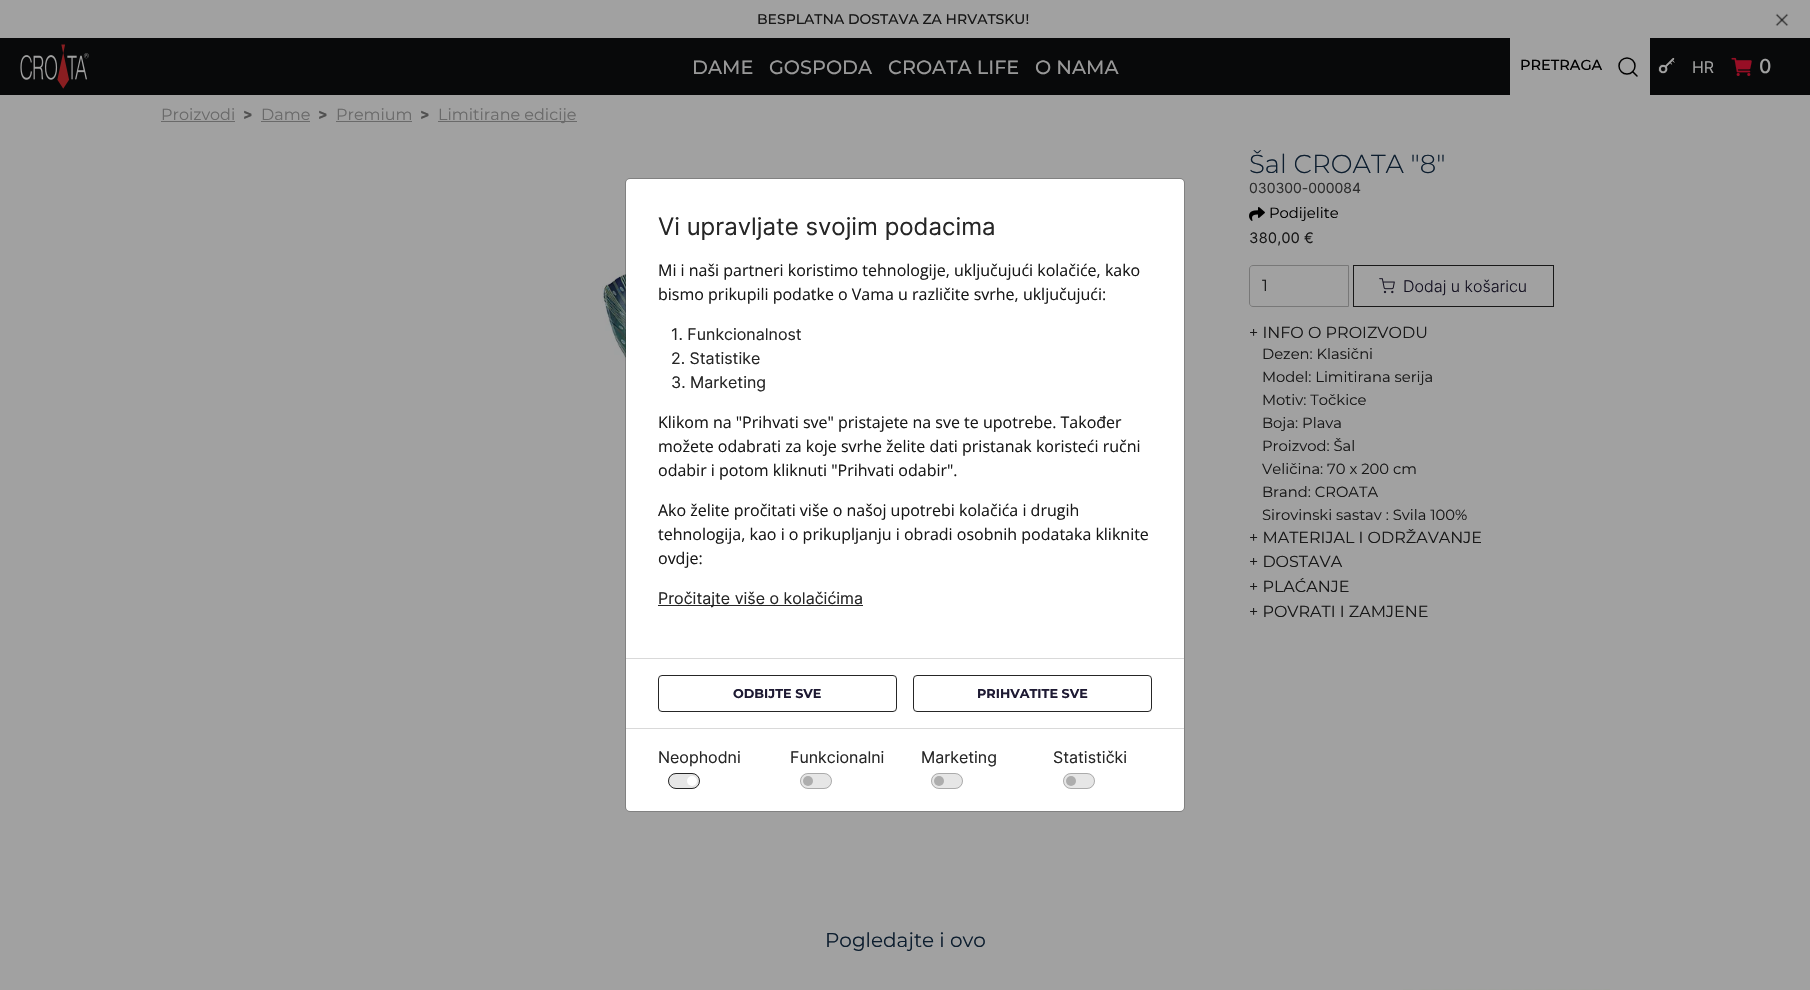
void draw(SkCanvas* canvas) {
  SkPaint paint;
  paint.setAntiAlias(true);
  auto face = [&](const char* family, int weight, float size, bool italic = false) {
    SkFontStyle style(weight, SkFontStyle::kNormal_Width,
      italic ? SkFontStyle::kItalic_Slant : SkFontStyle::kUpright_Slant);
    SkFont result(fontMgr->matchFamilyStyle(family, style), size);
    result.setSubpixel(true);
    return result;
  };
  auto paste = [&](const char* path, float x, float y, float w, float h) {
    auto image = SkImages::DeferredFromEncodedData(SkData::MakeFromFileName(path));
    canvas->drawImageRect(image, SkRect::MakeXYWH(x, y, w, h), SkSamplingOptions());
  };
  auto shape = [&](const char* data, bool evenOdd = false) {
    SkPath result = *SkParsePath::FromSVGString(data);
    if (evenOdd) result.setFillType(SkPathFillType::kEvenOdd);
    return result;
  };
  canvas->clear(0xffa1a1a1);
  paste("img/1.png", 1775, 13, 14, 13);
  paint.setColor(0xff08090a);
  canvas->drawRect(SkRect::MakeXYWH(0, 38, 1810, 57), paint);
  paste("img/2.png", 20, 44, 69, 45);
  paint.setColor(0xffa1a1a1);
  canvas->drawRect(SkRect::MakeXYWH(1510, 38, 140, 57), paint);
  paint.setStroke(true);
  paint.setStrokeWidth(1.5f);
  paint.setColor(0xff000000);
  canvas->drawCircle(1627, 66, 8, paint);
  paint.setStrokeCap(SkPaint::kRound_Cap);
  paint.setStrokeJoin(SkPaint::kRound_Join);
  canvas->drawPath(shape("M1637 76L1632.5 71.5"), paint);
  paste("img/3.png", 1658, 57, 18, 17);
  paste("img/4.png", 1731, 57, 21, 19);
  paint.setStroke(false);
  {
    const struct { float x, y, w, h; SkColor color; } items[] = {
      {161, 121, 74, 1, 0xff6a6a6a},
      {261, 121, 49, 1, 0xff6a6a6a},
      {336, 121, 76, 1, 0xff6a6a6a},
      {438, 121, 139, 1, 0xff6a6a6a},
    };
    for (auto [x, y, w, h, color] : items) {
      paint.setColor(color);
      canvas->drawRect(SkRect::MakeXYWH(x, y, w, h), paint);
    }
  }
  paste("img/5.png", 602, 238, 24, 453);
  paste("img/6.png", 1249, 207, 16, 14);
  paint.setStroke(true);
  paint.setStrokeWidth(1);
  paint.setStrokeCap(SkPaint::kButt_Cap);
  paint.setStrokeJoin(SkPaint::kMiter_Join);
  paint.setColor(0xff787878);
  canvas->drawPath(shape("M1253 265.5H1348.5V306.5H1253C1251 306.5 1249.5 305 1249.5 303V269C1249.5 267 1251 265.5 1253 265.5Z"), paint);
  paint.setColor(0xff181818);
  canvas->drawRect(SkRect::MakeXYWH(1353.5f, 265.5f, 200, 41), paint);
  paste("img/7.png", 1379, 278, 16, 16);
  paste("img/8.png", 1403, 989, 207, 1);
  paint.setStroke(false);
  paint.setColor(0xffffffff);
  canvas->drawRoundRect(SkRect::MakeXYWH(626, 179, 558, 632), 4, 4, paint);
  paint.setStroke(true);
  paint.setColor(0x33000000);
  canvas->drawRoundRect(SkRect::MakeXYWH(625.5f, 178.5f, 559, 633), 4.5f, 4.5f, paint);
  paint.setStroke(false);
  paint.setColor(0xff262626);
  canvas->drawRect(SkRect::MakeXYWH(658, 605, 205, 1), paint);
  paint.setColor(0xffd9d9d9);
  canvas->drawRect(SkRect::MakeXYWH(626, 658, 558, 1), paint);
  paint.setStroke(true);
  paint.setColor(0xff262626);
  canvas->drawRoundRect(SkRect::MakeXYWH(658.5f, 675.5f, 238, 36), 3.5f, 3.5f, paint);
  canvas->drawRoundRect(SkRect::MakeXYWH(913.5f, 675.5f, 238, 36), 3.5f, 3.5f, paint);
  paint.setStroke(false);
  paint.setColor(0xffd9d9d9);
  canvas->drawRect(SkRect::MakeXYWH(626, 728, 558, 1), paint);
  paint.setColor(0xffe6e6e6);
  canvas->drawRoundRect(SkRect::MakeXYWH(668, 773, 32, 16), 8, 8, paint);
  paint.setColor(0xffffffff);
  canvas->drawCircle(692, 781, 5, paint);
  paint.setStroke(true);
  paint.setColor(0xff262626);
  canvas->drawRoundRect(SkRect::MakeXYWH(668.5f, 773.5f, 31, 15), 7.5f, 7.5f, paint);
  paint.setStroke(false);
  paint.setColor(0xffe6e6e6);
  canvas->drawRoundRect(SkRect::MakeXYWH(800, 773, 32, 16), 8, 8, paint);
  paint.setColor(0xffadadad);
  canvas->drawCircle(808, 781, 5, paint);
  paint.setStroke(true);
  paint.setColor(0x4d262626);
  canvas->drawRoundRect(SkRect::MakeXYWH(800.5f, 773.5f, 31, 15), 7.5f, 7.5f, paint);
  paint.setStroke(false);
  paint.setColor(0xffe6e6e6);
  canvas->drawRoundRect(SkRect::MakeXYWH(931, 773, 32, 16), 8, 8, paint);
  paint.setColor(0xffadadad);
  canvas->drawCircle(939, 781, 5, paint);
  paint.setStroke(true);
  paint.setColor(0x4d262626);
  canvas->drawRoundRect(SkRect::MakeXYWH(931.5f, 773.5f, 31, 15), 7.5f, 7.5f, paint);
  paint.setStroke(false);
  paint.setColor(0xffe6e6e6);
  canvas->drawRoundRect(SkRect::MakeXYWH(1063, 773, 32, 16), 8, 8, paint);
  paint.setColor(0xffadadad);
  canvas->drawCircle(1071, 781, 5, paint);
  paint.setStroke(true);
  paint.setColor(0x4d262626);
  canvas->drawRoundRect(SkRect::MakeXYWH(1063.5f, 773.5f, 31, 15), 7.5f, 7.5f, paint);
  auto f0 = face("Montserrat", 500, 14);
  paint.setStroke(false);
  paint.setColor(0xff181818);
  canvas->drawString("BESPLATNA DOSTAVA ZA HRVATSKU!", 757, 24, f0, paint);
  auto f1 = face("Montserrat", 500, 19.25f);
  paint.setColor(0xff989898);
  {
    const struct { const char* s; float x, y; } items[] = {
      {"DAME", 692, 74},
      {"GOSPODA", 769, 74},
      {"CROATA LIFE", 888, 74},
      {"O NAMA", 1035, 74},
    };
    for (auto [s, x, y] : items) {
      canvas->drawString(s, x, y, f1, paint);
    }
  }
  auto f2 = face("Montserrat", 500, 14.5f);
  paint.setColor(0xff000000);
  canvas->drawString("PRETRAGA", 1520, 70, f2, paint);
  auto f3 = face("Inter", 400, 16);
  paint.setColor(0xffa1a1a1);
  canvas->drawString("HR", 1692, 73, f3, paint);
  auto f4 = face("Inter", 500, 19.25f);
  canvas->drawString("0", 1759, 73, f4, paint);
  auto f5 = face("Montserrat", 400, 16);
  paint.setColor(0xff6a6a6a);
  canvas->drawString("Proizvodi", 161, 120, f5, paint);
  auto f6 = face("Inter", 800, 14);
  paint.setColor(0xff515151);
  canvas->drawString(">", 243, 119, f6, paint);
  paint.setColor(0xff6a6a6a);
  canvas->drawString("Dame", 261, 120, f5, paint);
  paint.setColor(0xff515151);
  canvas->drawString(">", 318, 119, f6, paint);
  paint.setColor(0xff6a6a6a);
  canvas->drawString("Premium", 336, 120, f5, paint);
  paint.setColor(0xff515151);
  canvas->drawString(">", 420, 119, f6, paint);
  paint.setColor(0xff6a6a6a);
  canvas->drawString("Limitirane edicije", 438, 120, f5, paint);
  auto f7 = face("Montserrat", 300, 26);
  paint.setColor(0xff0d1e2f);
  canvas->drawString("Šal CROATA \"8\"", 1249, 173, f7, paint);
  auto f8 = face("Inter", 400, 14);
  paint.setColor(0xff2d2d2d);
  canvas->drawString("030300-000084", 1249, 193, f8, paint);
  auto f9 = face("Montserrat", 400, 14.75f);
  paint.setColor(0xff000000);
  canvas->drawString("Podijelite", 1269, 218, f9, paint);
  auto f10 = face("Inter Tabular", 400, 14.5f);
  paint.setColor(0xff181818);
  canvas->drawString("380,00 €", 1249, 243, f10, paint);
  canvas->drawString("1", 1262, 291, f5, paint);
  auto f11 = face("Inter", 300, 16);
  paint.setColor(0xff131020);
  canvas->drawString("Dodaj u košaricu", 1403, 292, f11, paint);
  paint.setColor(0xff181818);
  canvas->drawString("+ INFO O PROIZVODU", 1249, 338, f5, paint);
  {
    const struct { const char* s; float x, y; } items[] = {
      {"Dezen: Klasični", 1262, 359},
      {"Model: Limitirana serija", 1262, 382},
      {"Motiv: Točkice", 1262, 405},
      {"Boja: Plava", 1262, 428},
      {"Proizvod: Šal", 1262, 451},
      {"Veličina: 70 x 200 cm", 1262, 474},
      {"Brand: CROATA", 1262, 497},
      {"Sirovinski sastav : Svila 100%", 1262, 520},
    };
    for (auto [s, x, y] : items) {
      canvas->drawString(s, x, y, f9, paint);
    }
  }
  {
    const struct { const char* s; float x, y; } items[] = {
      {"+ MATERIJAL I ODRŽAVANJE", 1249, 543},
      {"+ DOSTAVA", 1249, 567},
      {"+ PLAĆANJE", 1249, 592},
      {"+ POVRATI I ZAMJENE", 1249, 617},
    };
    for (auto [s, x, y] : items) {
      canvas->drawString(s, x, y, f5, paint);
    }
  }
  auto f12 = face("Montserrat", 400, 20);
  paint.setColor(0xff0d1e2f);
  canvas->drawString("Pogledajte i ovo", 825, 947, f12, paint);
  auto f13 = face("Inter", 400, 24);
  paint.setColor(0xff262626);
  canvas->drawString("Vi upravljate svojim podacima", 658, 235, f13, paint);
  auto f14 = face("Open Sans", 400, 16);
  paint.setColor(0xff181818);
  canvas->drawString("Mi i naši partneri koristimo tehnologije, uključujući kolačiće, kako", 658, 276, f14, paint);
  canvas->drawString("bismo prikupili podatke o Vama u različite svrhe, uključujući:", 658, 300, f14, paint);
  paint.setColor(0xff262626);
  {
    const struct { const char* s; float x, y; } items[] = {
      {"1. Funkcionalnost", 671, 340},
      {"2. Statistike", 671, 364},
      {"3. Marketing", 671, 388},
    };
    for (auto [s, x, y] : items) {
      canvas->drawString(s, x, y, f3, paint);
    }
  }
  paint.setColor(0xff181818);
  {
    const struct { const char* s; float x, y; } items[] = {
      {"Klikom na \"Prihvati sve\" pristajete na sve te upotrebe. Također", 658, 428},
      {"možete odabrati za koje svrhe želite dati pristanak koristeći ručni", 658, 452},
      {"odabir i potom kliknuti \"Prihvati odabir\".", 658, 476},
      {"Ako želite pročitati više o našoj upotrebi kolačića i drugih", 658, 516},
      {"tehnologija, kao i o prikupljanju i obradi osobnih podataka kliknite", 658, 540},
      {"ovdje:", 658, 564},
    };
    for (auto [s, x, y] : items) {
      canvas->drawString(s, x, y, f14, paint);
    }
  }
  paint.setColor(0xff262626);
  canvas->drawString("Pročitajte više o kolačićima", 658, 604, f3, paint);
  auto f15 = face("Montserrat", 700, 12.75f);
  paint.setColor(0xff1e1a33);
  canvas->drawString("ODBIJTE SVE", 733, 698, f15, paint);
  canvas->drawString("PRIHVATITE SVE", 977, 698, f15, paint);
  paint.setColor(0xff262626);
  {
    const struct { const char* s; float x, y; } items[] = {
      {"Neophodni", 658, 763},
      {"Funkcionalni", 790, 763},
      {"Marketing", 921, 763},
      {"Statistički", 1053, 763},
    };
    for (auto [s, x, y] : items) {
      canvas->drawString(s, x, y, f3, paint);
    }
  }
}
